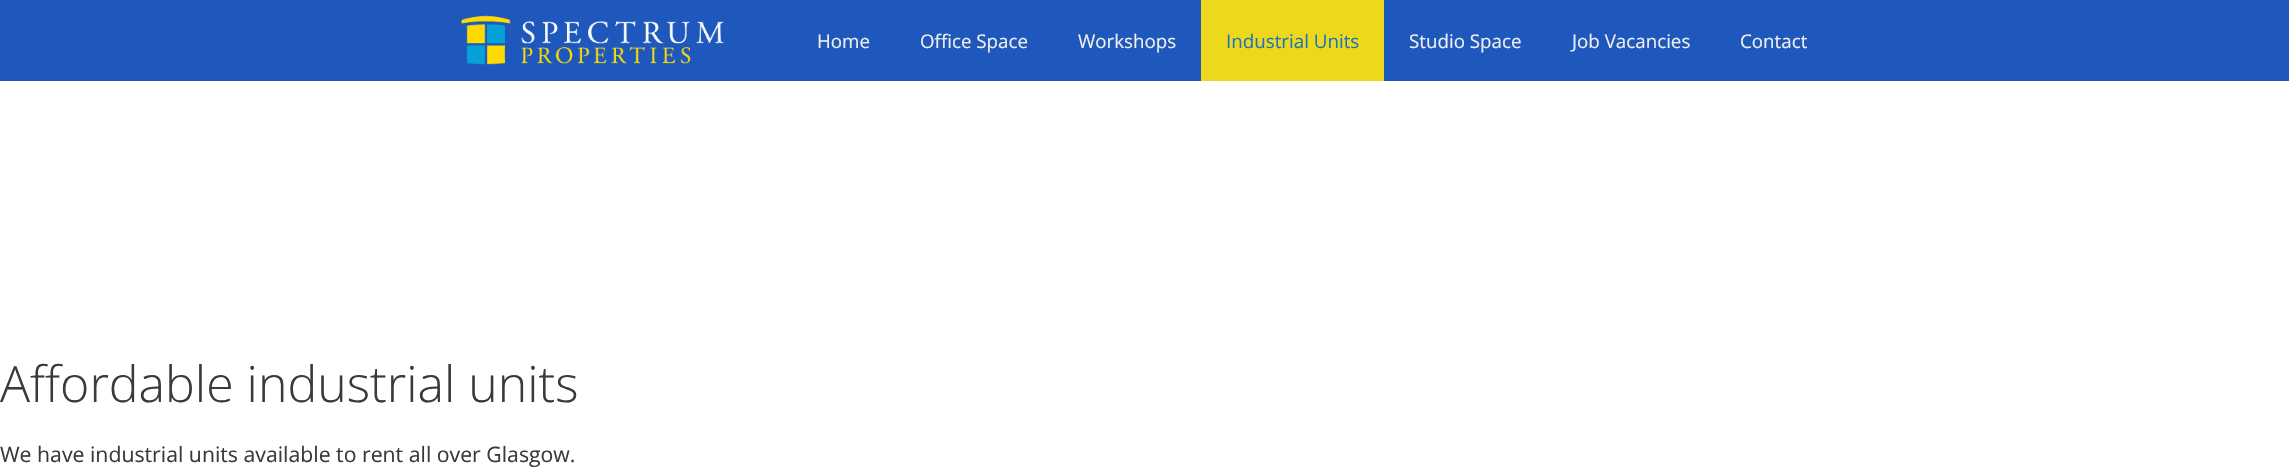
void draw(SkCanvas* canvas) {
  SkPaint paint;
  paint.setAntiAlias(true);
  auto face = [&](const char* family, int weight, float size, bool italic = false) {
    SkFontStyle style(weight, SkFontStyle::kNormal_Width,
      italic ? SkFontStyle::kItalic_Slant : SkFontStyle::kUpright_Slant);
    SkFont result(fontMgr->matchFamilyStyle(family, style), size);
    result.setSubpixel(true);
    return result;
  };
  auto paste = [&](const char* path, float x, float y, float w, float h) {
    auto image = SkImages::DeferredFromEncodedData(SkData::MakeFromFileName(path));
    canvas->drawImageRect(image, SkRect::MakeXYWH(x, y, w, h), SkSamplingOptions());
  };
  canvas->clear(0xffffffff);
  paint.setColor(0xff1e58bc);
  canvas->drawRect(SkRect::MakeXYWH(0, 0, 2289, 81), paint);
  paste("img/1.png", 461, 15, 263, 50);
  paint.setColor(0xffedd81c);
  canvas->drawRect(SkRect::MakeXYWH(1201, 0, 183, 81), paint);
  auto f0 = face("Open Sans", 400, 18.75f);
  paint.setColor(0xffefefef);
  {
    const struct { const char* s; float x, y; } items[] = {
      {"Home", 817, 48},
      {"Office Space", 920, 48},
      {"Workshops", 1078, 48},
    };
    for (auto [s, x, y] : items) {
      canvas->drawString(s, x, y, f0, paint);
    }
  }
  paint.setColor(0xff1e73be);
  canvas->drawString("Industrial Units", 1226, 48, f0, paint);
  paint.setColor(0xffefefef);
  {
    const struct { const char* s; float x, y; } items[] = {
      {"Studio Space", 1409, 48},
      {"Job Vacancies", 1572, 48},
      {"Contact", 1740, 48},
    };
    for (auto [s, x, y] : items) {
      canvas->drawString(s, x, y, f0, paint);
    }
  }
  auto f1 = face("Open Sans", 300, 50);
  paint.setColor(0xff3a3a3a);
  canvas->drawString("Affordable industrial units", 0, 402, f1, paint);
  auto f2 = face("Open Sans", 400, 21.25f);
  canvas->drawString("We have industrial units available to rent all over Glasgow.", 0, 462, f2, paint);
}
